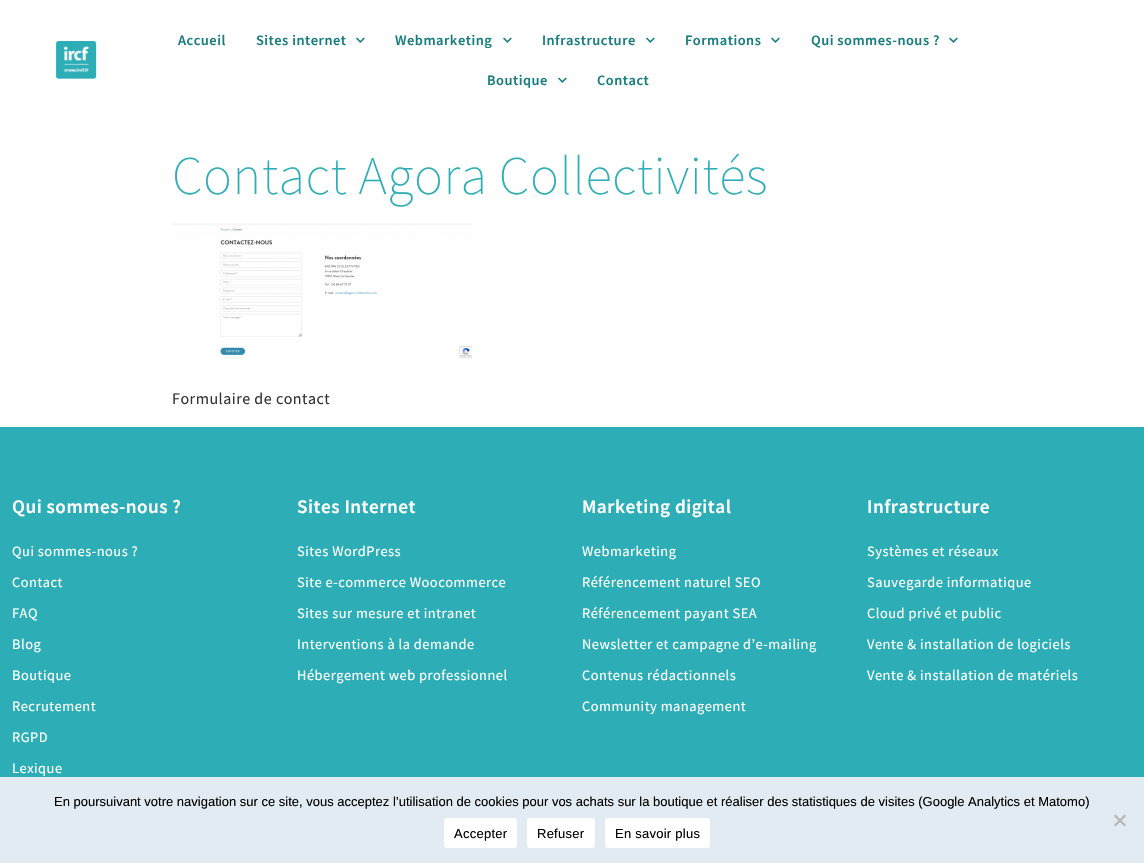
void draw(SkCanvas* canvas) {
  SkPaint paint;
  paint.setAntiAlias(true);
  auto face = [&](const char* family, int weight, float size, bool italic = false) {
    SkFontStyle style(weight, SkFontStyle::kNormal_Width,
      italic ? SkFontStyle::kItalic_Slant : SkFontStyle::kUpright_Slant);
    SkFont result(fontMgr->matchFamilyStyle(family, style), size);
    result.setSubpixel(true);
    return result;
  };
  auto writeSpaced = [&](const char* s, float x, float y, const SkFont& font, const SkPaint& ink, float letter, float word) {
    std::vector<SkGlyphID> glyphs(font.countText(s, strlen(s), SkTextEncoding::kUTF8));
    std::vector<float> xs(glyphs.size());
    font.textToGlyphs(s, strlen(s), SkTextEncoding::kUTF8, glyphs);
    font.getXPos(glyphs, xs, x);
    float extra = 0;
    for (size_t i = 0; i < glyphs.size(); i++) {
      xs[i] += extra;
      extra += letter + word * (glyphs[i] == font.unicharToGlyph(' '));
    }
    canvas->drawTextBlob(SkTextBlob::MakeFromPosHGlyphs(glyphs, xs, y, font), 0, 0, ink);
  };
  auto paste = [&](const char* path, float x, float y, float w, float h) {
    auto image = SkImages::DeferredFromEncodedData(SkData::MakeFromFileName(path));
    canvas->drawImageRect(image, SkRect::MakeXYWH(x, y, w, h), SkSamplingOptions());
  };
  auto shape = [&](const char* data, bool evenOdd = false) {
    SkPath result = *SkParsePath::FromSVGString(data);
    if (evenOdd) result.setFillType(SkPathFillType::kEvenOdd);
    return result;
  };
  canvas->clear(0xffffffff);
  paste("img/1.png", 56, 41, 41, 38);
  paste("img/2.png", 356, 37, 9, 6);
  paste("img/2.png", 503, 37, 9, 6);
  paste("img/2.png", 646, 37, 9, 6);
  paste("img/2.png", 771, 37, 9, 6);
  paste("img/2.png", 949, 37, 9, 6);
  paste("img/2.png", 558, 77, 9, 6);
  paste("img/3.png", 172, 223, 300, 136);
  paint.setColor(0xff2daeb7);
  canvas->drawRect(SkRect::MakeXYWH(0, 427, 1144, 350), paint);
  paint.setColor(0xffe3ebf2);
  canvas->drawRect(SkRect::MakeXYWH(0, 777, 1144, 86), paint);
  paint.setColor(0xffb2b6b9);
  canvas->drawPath(shape("M1124.5 814.5L1126 816L1115.5 826.5L1114 825Z"), paint);
  canvas->drawPath(shape("M1114 816L1115.5 814.5L1126 825L1124.5 826.5Z"), paint);
  paint.setColor(0xffffffff);
  canvas->drawRoundRect(SkRect::MakeXYWH(444, 818, 73, 30), 3, 3, paint);
  canvas->drawRoundRect(SkRect::MakeXYWH(527, 818, 68, 30), 3, 3, paint);
  canvas->drawRoundRect(SkRect::MakeXYWH(605, 818, 105, 30), 3, 3, paint);
  auto f0 = face("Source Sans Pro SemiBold", 600, 14.4f);
  paint.setColor(0xff197d7f);
  {
    const struct { const char* s; float x, y; } items[] = {
      {"Accueil", 178, 45},
      {"Sites internet", 256, 45},
      {"Webmarketing", 395, 45},
      {"Infrastructure", 542, 45},
      {"Formations", 685, 45},
      {"Qui sommes-nous ?", 811, 45},
      {"Boutique", 487, 85},
      {"Contact", 597, 85},
    };
    for (auto [s, x, y] : items) {
      writeSpaced(s, x, y, f0, paint, 0.5f, 0);
    }
  }
  auto f1 = face("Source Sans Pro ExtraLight", 200, 54.4f);
  paint.setColor(0xff2daeb7);
  writeSpaced("Contact Agora Collectivités", 172, 194, f1, paint, 0.5f, 0);
  auto f2 = face("Source Sans Pro", 400, 16);
  paint.setColor(0xff333333);
  writeSpaced("Formulaire de contact", 172, 404, f2, paint, 0.5f, 0);
  auto f3 = face("Source Sans Pro SemiBold", 600, 19.25f);
  paint.setColor(0xffffffff);
  writeSpaced("Qui sommes-nous ?", 12, 513, f3, paint, 0.5f, 0);
  auto f4 = face("Source Sans Pro", 400, 14.4f);
  {
    const struct { const char* s; float x, y; } items[] = {
      {"Qui sommes-nous ?", 12, 556},
      {"Contact", 12, 587},
      {"FAQ", 12, 618},
      {"Blog", 12, 649},
      {"Boutique", 12, 680},
      {"Recrutement", 12, 711},
      {"RGPD", 12, 742},
      {"Lexique", 12, 773},
    };
    for (auto [s, x, y] : items) {
      writeSpaced(s, x, y, f4, paint, 0.5f, 0);
    }
  }
  writeSpaced("Sites Internet", 297, 513, f3, paint, 0.5f, 0);
  {
    const struct { const char* s; float x, y; } items[] = {
      {"Sites WordPress", 297, 556},
      {"Site e-commerce Woocommerce", 297, 587},
      {"Sites sur mesure et intranet", 297, 618},
      {"Interventions à la demande", 297, 649},
      {"Hébergement web professionnel", 297, 680},
    };
    for (auto [s, x, y] : items) {
      writeSpaced(s, x, y, f4, paint, 0.5f, 0);
    }
  }
  writeSpaced("Marketing digital", 582, 513, f3, paint, 0.5f, 0);
  {
    const struct { const char* s; float x, y; } items[] = {
      {"Webmarketing", 582, 556},
      {"Référencement naturel SEO", 582, 587},
      {"Référencement payant SEA", 582, 618},
      {"Newsletter et campagne d’e-mailing", 582, 649},
      {"Contenus rédactionnels", 582, 680},
      {"Community management", 582, 711},
    };
    for (auto [s, x, y] : items) {
      writeSpaced(s, x, y, f4, paint, 0.5f, 0);
    }
  }
  writeSpaced("Infrastructure", 867, 513, f3, paint, 0.5f, 0);
  {
    const struct { const char* s; float x, y; } items[] = {
      {"Systèmes et réseaux", 867, 556},
      {"Sauvegarde informatique", 867, 587},
      {"Cloud privé et public", 867, 618},
      {"Vente & installation de logiciels", 867, 649},
      {"Vente & installation de matériels", 867, 680},
    };
    for (auto [s, x, y] : items) {
      writeSpaced(s, x, y, f4, paint, 0.5f, 0);
    }
  }
  auto f5 = face("Liberation Sans", 400, 13);
  paint.setColor(0xff000000);
  canvas->drawString("En poursuivant votre navigation sur ce site, vous acceptez l’utilisation de cookies pour vos achats sur la boutique et réaliser des statistiques de visites (Google Analytics et Matomo)", 54, 806, f5, paint);
  {
    const struct { const char* s; float x, y; } items[] = {
      {"Accepter", 454, 838},
      {"Refuser", 537, 838},
      {"En savoir plus", 615, 838},
    };
    for (auto [s, x, y] : items) {
      writeSpaced(s, x, y, f5, paint, 0.25f, 0);
    }
  }
}
